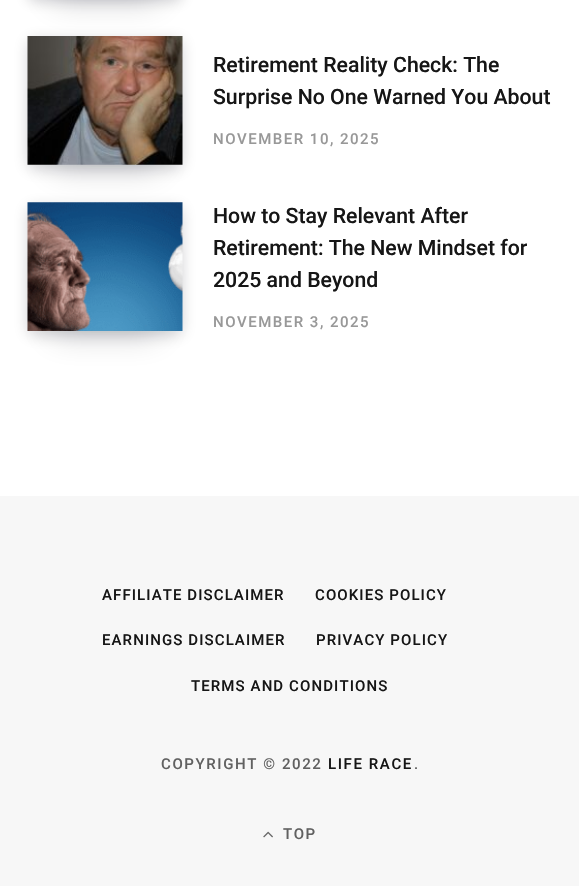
void draw(SkCanvas* canvas) {
  SkPaint paint;
  paint.setAntiAlias(true);
  auto face = [&](const char* family, int weight, float size, bool italic = false) {
    SkFontStyle style(weight, SkFontStyle::kNormal_Width,
      italic ? SkFontStyle::kItalic_Slant : SkFontStyle::kUpright_Slant);
    SkFont result(fontMgr->matchFamilyStyle(family, style), size);
    result.setSubpixel(true);
    return result;
  };
  auto writeSpaced = [&](const char* s, float x, float y, const SkFont& font, const SkPaint& ink, float letter, float word) {
    std::vector<SkGlyphID> glyphs(font.countText(s, strlen(s), SkTextEncoding::kUTF8));
    std::vector<float> xs(glyphs.size());
    font.textToGlyphs(s, strlen(s), SkTextEncoding::kUTF8, glyphs);
    font.getXPos(glyphs, xs, x);
    float extra = 0;
    for (size_t i = 0; i < glyphs.size(); i++) {
      xs[i] += extra;
      extra += letter + word * (glyphs[i] == font.unicharToGlyph(' '));
    }
    canvas->drawTextBlob(SkTextBlob::MakeFromPosHGlyphs(glyphs, xs, y, font), 0, 0, ink);
  };
  auto paste = [&](const char* path, float x, float y, float w, float h) {
    auto image = SkImages::DeferredFromEncodedData(SkData::MakeFromFileName(path));
    canvas->drawImageRect(image, SkRect::MakeXYWH(x, y, w, h), SkSamplingOptions());
  };
  canvas->clear(0xffffffff);
  paint.setColor(0x33070a19);
  paint.setMaskFilter(SkMaskFilter::MakeBlur(kNormal_SkBlurStyle, 17));
  canvas->drawRect(SkRect::MakeXYWH(53, -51, 105, 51), paint);
  paint.setMaskFilter(nullptr);
  paint.setMaskFilter(SkMaskFilter::MakeBlur(kNormal_SkBlurStyle, 7.5f));
  canvas->drawRect(SkRect::MakeXYWH(29, -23, 152, 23), paint);
  paint.setMaskFilter(nullptr);
  paint.setMaskFilter(SkMaskFilter::MakeBlur(kNormal_SkBlurStyle, 17));
  canvas->drawRect(SkRect::MakeXYWH(53, 89, 105, 79), paint);
  paint.setMaskFilter(nullptr);
  paint.setMaskFilter(SkMaskFilter::MakeBlur(kNormal_SkBlurStyle, 7.5f));
  canvas->drawRect(SkRect::MakeXYWH(29, 41, 152, 127), paint);
  paint.setMaskFilter(nullptr);
  paste("img/1.png", 27, 36, 156, 129);
  paint.setMaskFilter(SkMaskFilter::MakeBlur(kNormal_SkBlurStyle, 17));
  canvas->drawRect(SkRect::MakeXYWH(53, 255, 105, 79), paint);
  paint.setMaskFilter(nullptr);
  paint.setMaskFilter(SkMaskFilter::MakeBlur(kNormal_SkBlurStyle, 7.5f));
  canvas->drawRect(SkRect::MakeXYWH(29, 208, 152, 126), paint);
  paint.setMaskFilter(nullptr);
  paste("img/2.png", 27, 202, 156, 129);
  paint.setColor(0xfff7f7f7);
  canvas->drawRect(SkRect::MakeXYWH(0, 496, 579, 390), paint);
  paste("img/3.png", 263, 831, 10, 7);
  auto f0 = face("Roboto", 500, 21.25f);
  paint.setColor(0xff161616);
  canvas->drawString("Retirement Reality Check: The", 213, 72, f0, paint);
  canvas->drawString("Surprise No One Warned You About", 213, 104, f0, paint);
  auto f1 = face("Roboto", 500, 15);
  paint.setColor(0xff989898);
  writeSpaced("NOVEMBER 10, 2025", 213, 144, f1, paint, 1.5f, 0);
  paint.setColor(0xff161616);
  {
    const struct { const char* s; float x, y; } items[] = {
      {"How to Stay Relevant After", 213, 223},
      {"Retirement: The New Mindset for", 213, 255},
      {"2025 and Beyond", 213, 287},
    };
    for (auto [s, x, y] : items) {
      canvas->drawString(s, x, y, f0, paint);
    }
  }
  paint.setColor(0xff989898);
  writeSpaced("NOVEMBER 3, 2025", 213, 327, f1, paint, 1.5f, 0);
  paint.setColor(0xff161616);
  {
    const struct { const char* s; float x, y; } items[] = {
      {"AFFILIATE DISCLAIMER", 102, 600},
      {"COOKIES POLICY", 315, 600},
      {"EARNINGS DISCLAIMER", 102, 645},
      {"PRIVACY POLICY", 316, 645},
      {"TERMS AND CONDITIONS", 191, 691},
    };
    for (auto [s, x, y] : items) {
      writeSpaced(s, x, y, f1, paint, 1.1f, 0);
    }
  }
  paint.setColor(0xff616161);
  writeSpaced("COPYRIGHT © 2022", 161, 769, f1, paint, 1.6f, 0);
  paint.setColor(0xff161616);
  writeSpaced("LIFE RACE", 328, 769, f1, paint, 1.6f, 0);
  paint.setColor(0xff616161);
  writeSpaced(".", 414, 769, f1, paint, 1.6f, 0);
  writeSpaced("TOP", 283, 839, f1, paint, 1.5f, 0);
}
